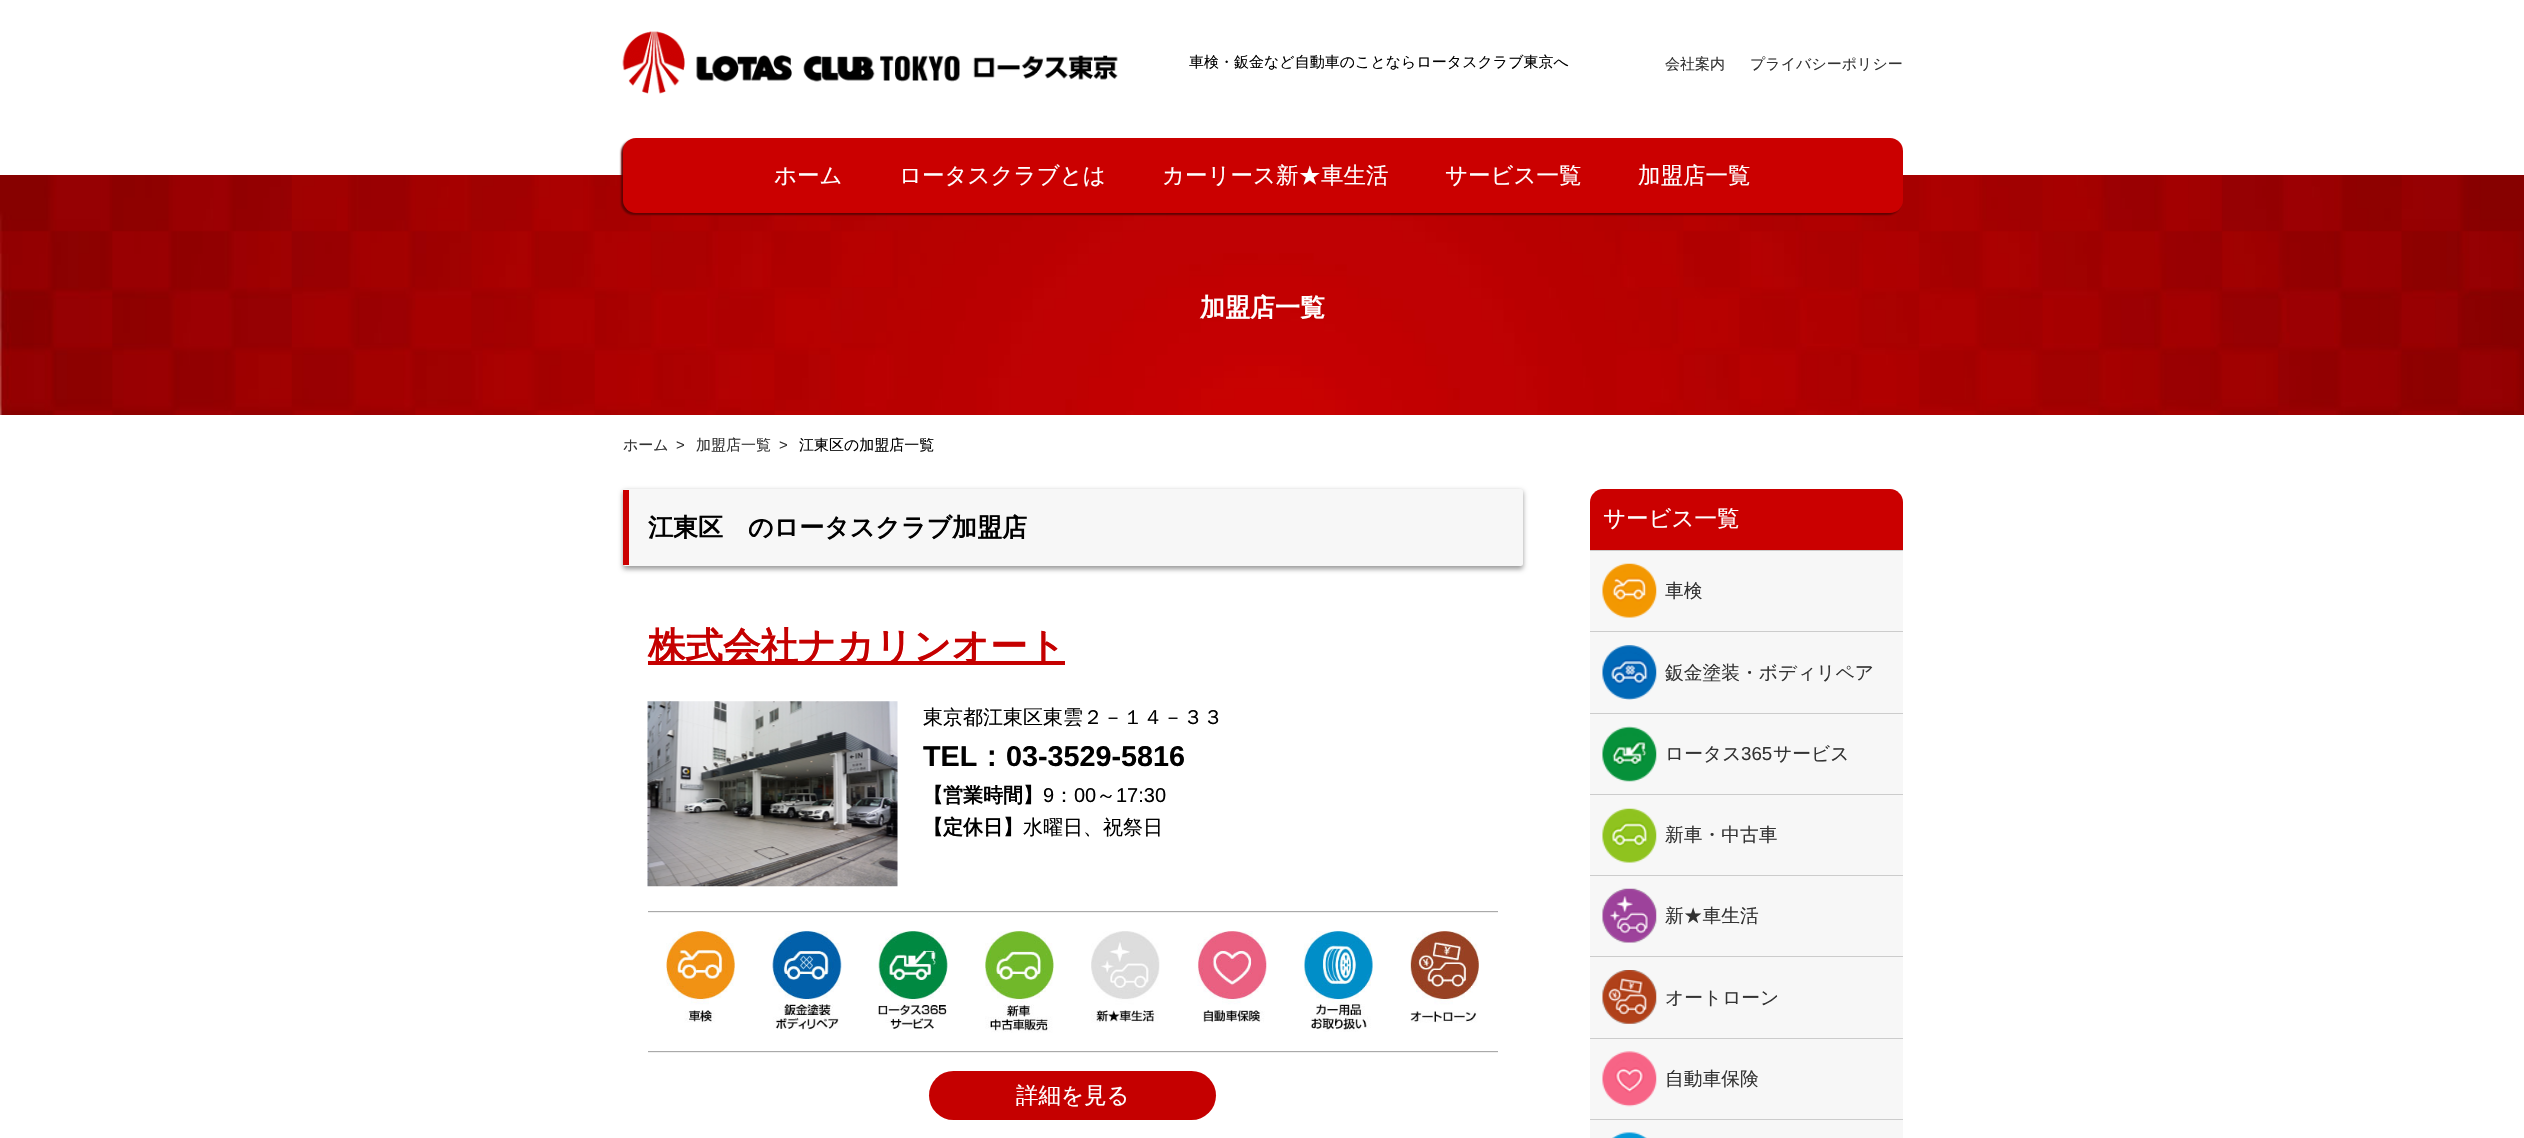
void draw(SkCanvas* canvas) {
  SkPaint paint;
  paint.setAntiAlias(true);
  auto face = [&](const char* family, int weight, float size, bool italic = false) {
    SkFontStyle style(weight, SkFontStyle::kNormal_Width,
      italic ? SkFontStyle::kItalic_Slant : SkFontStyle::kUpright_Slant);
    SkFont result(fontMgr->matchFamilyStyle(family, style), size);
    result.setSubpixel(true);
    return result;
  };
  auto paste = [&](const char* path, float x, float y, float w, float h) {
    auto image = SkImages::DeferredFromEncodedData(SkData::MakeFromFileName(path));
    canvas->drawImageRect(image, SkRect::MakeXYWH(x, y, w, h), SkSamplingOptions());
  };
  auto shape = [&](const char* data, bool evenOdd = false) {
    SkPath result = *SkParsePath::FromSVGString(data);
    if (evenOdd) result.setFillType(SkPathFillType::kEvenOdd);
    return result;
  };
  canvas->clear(0xffffffff);
  paste("img/1.png", 622, 31, 496, 63);
  paste("img/2.png", 0, 175, 2524, 240);
  paint.setColor(0xff5e0101);
  paint.setMaskFilter(SkMaskFilter::MakeBlur(kNormal_SkBlurStyle, 1));
  canvas->drawRoundRect(SkRect::MakeXYWH(621, 140, 1280, 75), 13, 13, paint);
  paint.setMaskFilter(nullptr);
  paint.setColor(0xffcb0000);
  canvas->drawRoundRect(SkRect::MakeXYWH(623, 138, 1280, 75), 13, 13, paint);
  paint.setColor(0xff999999);
  paint.setMaskFilter(SkMaskFilter::MakeBlur(kNormal_SkBlurStyle, 2.5f));
  canvas->drawRoundRect(SkRect::MakeXYWH(623, 491, 900, 78), 2.5f, 2.5f, paint);
  paint.setMaskFilter(nullptr);
  paint.setColor(0xfff7f7f7);
  canvas->drawRoundRect(SkRect::MakeXYWH(623, 489, 900, 77), 2.5f, 2.5f, paint);
  paint.setColor(0xffcb0000);
  canvas->drawRect(SkRect::MakeXYWH(623, 490, 6, 75), paint);
  paint.setColor(0xffc50000);
  canvas->drawRect(SkRect::MakeXYWH(648, 661, 417, 4), paint);
  paste("img/3.png", 647, 701, 251, 186);
  {
    const struct { float x, y, w, h; SkColor color; } items[] = {
      {648, 912, 850, 141, 0xfff0f0f0},
      {648, 911, 850, 1, 0xffaaaaaa},
      {648, 1051, 850, 1, 0xffaaaaaa},
      {648, 913, 850, 138, 0xffffffff},
    };
    for (auto [x, y, w, h, color] : items) {
      paint.setColor(color);
      canvas->drawRect(SkRect::MakeXYWH(x, y, w, h), paint);
    }
  }
  paste("img/4.png", 666, 931, 69, 92);
  paste("img/5.png", 772, 931, 70, 99);
  paste("img/6.png", 878, 931, 70, 98);
  paste("img/7.png", 985, 931, 69, 102);
  paste("img/8.png", 1091, 931, 69, 92);
  paste("img/9.png", 1197, 931, 70, 92);
  paste("img/10.png", 1303, 931, 70, 101);
  paste("img/11.png", 1410, 931, 69, 92);
  paint.setColor(0xffc50000);
  canvas->drawRoundRect(SkRect::MakeXYWH(929, 1071, 287, 49), 24.5f, 24.5f, paint);
  paint.setColor(0xffcb0000);
  canvas->drawPath(shape("M1603 489H1890C1897 489 1903 495 1903 502V551H1590V502C1590 495 1596 489 1603 489Z"), paint);
  paint.setColor(0xffcccccc);
  canvas->drawRect(SkRect::MakeXYWH(1590, 550, 313, 1), paint);
  paint.setColor(0xfff7f7f7);
  canvas->drawRect(SkRect::MakeXYWH(1590, 551, 313, 162), paint);
  paste("img/12.png", 1602, 563, 55, 55);
  paint.setColor(0xffcccccc);
  canvas->drawRect(SkRect::MakeXYWH(1590, 631, 313, 1), paint);
  paste("img/13.png", 1602, 645, 55, 55);
  canvas->drawRect(SkRect::MakeXYWH(1590, 713, 313, 1), paint);
  paint.setColor(0xfff7f7f7);
  canvas->drawRect(SkRect::MakeXYWH(1590, 714, 313, 80), paint);
  paste("img/14.png", 1602, 726, 55, 56);
  paint.setColor(0xffcccccc);
  canvas->drawRect(SkRect::MakeXYWH(1590, 794, 313, 1), paint);
  paint.setColor(0xfff7f7f7);
  canvas->drawRect(SkRect::MakeXYWH(1590, 795, 313, 80), paint);
  paste("img/15.png", 1602, 808, 55, 55);
  paint.setColor(0xffcccccc);
  canvas->drawRect(SkRect::MakeXYWH(1590, 875, 313, 1), paint);
  paint.setColor(0xfff7f7f7);
  canvas->drawRect(SkRect::MakeXYWH(1590, 876, 313, 162), paint);
  paste("img/16.png", 1602, 888, 55, 55);
  paint.setColor(0xffcccccc);
  canvas->drawRect(SkRect::MakeXYWH(1590, 956, 313, 1), paint);
  paste("img/17.png", 1602, 970, 55, 54);
  canvas->drawRect(SkRect::MakeXYWH(1590, 1038, 313, 1), paint);
  paint.setColor(0xfff7f7f7);
  canvas->drawRect(SkRect::MakeXYWH(1590, 1039, 313, 80), paint);
  paste("img/18.png", 1602, 1051, 55, 56);
  paint.setColor(0xffcccccc);
  canvas->drawRect(SkRect::MakeXYWH(1590, 1119, 313, 1), paint);
  paint.setColor(0xfff7f7f7);
  canvas->drawRect(SkRect::MakeXYWH(1590, 1120, 313, 18), paint);
  paste("img/19.png", 1612, 1132, 35, 6);
  auto f0 = face("WenQuanYi Zen Hei", 500, 15);
  paint.setColor(0xff000000);
  canvas->drawString("車検・鈑金など自動車のことならロータスクラブ東京へ", 1189, 67, f0, paint);
  paint.setColor(0xff333333);
  canvas->drawString("会社案内", 1665, 69, f0, paint);
  canvas->drawString("プライバシーポリシー", 1750, 69, f0, paint);
  auto f1 = face("WenQuanYi Zen Hei", 500, 22.5f);
  paint.setColor(0xffffffff);
  {
    const struct { const char* s; float x, y; } items[] = {
      {"ホーム", 774, 183},
      {"ロータスクラブとは", 899, 183},
      {"カーリース新★車生活", 1162, 183},
      {"サービス一覧", 1445, 183},
      {"加盟店一覧", 1638, 183},
    };
    for (auto [s, x, y] : items) {
      canvas->drawString(s, x, y, f1, paint);
    }
  }
  auto f2 = face("WenQuanYi Zen Hei", 700, 25);
  canvas->drawString("加盟店一覧", 1200, 316, f2, paint);
  paint.setColor(0xff333333);
  canvas->drawString("ホーム", 623, 450, f0, paint);
  auto f3 = face("Liberation Sans", 400, 15);
  canvas->drawString(">", 676, 450, f3, paint);
  canvas->drawString("加盟店一覧", 696, 450, f0, paint);
  canvas->drawString(">", 779, 450, f3, paint);
  paint.setColor(0xff000000);
  canvas->drawString("江東区の加盟店一覧", 799, 450, f0, paint);
  canvas->drawString("江東区　のロータスクラブ加盟店", 648, 536, f2, paint);
  auto f4 = face("WenQuanYi Zen Hei", 700, 37.5f);
  paint.setColor(0xffc50000);
  canvas->drawString("株式会社ナカリンオート", 648, 659, f4, paint);
  auto f5 = face("WenQuanYi Zen Hei", 500, 20);
  paint.setColor(0xff000000);
  canvas->drawString("東京都江東区東雲２－１４－３３", 923, 724, f5, paint);
  auto f6 = face("Liberation Sans", 700, 28.75f);
  canvas->drawString("TEL", 923, 766, f6, paint);
  auto f7 = face("WenQuanYi Zen Hei", 700, 28.75f);
  canvas->drawString("：", 977, 766, f7, paint);
  canvas->drawString("03-3529-5816", 1006, 766, f6, paint);
  auto f8 = face("WenQuanYi Zen Hei", 700, 20);
  canvas->drawString("【営業時間】", 923, 802, f8, paint);
  auto f9 = face("Liberation Sans", 400, 20);
  canvas->drawString("9", 1043, 802, f9, paint);
  canvas->drawString("：", 1054, 802, f5, paint);
  canvas->drawString("00", 1074, 802, f9, paint);
  canvas->drawString("～", 1096, 802, f5, paint);
  canvas->drawString("17:30", 1116, 802, f9, paint);
  canvas->drawString("【定休日】", 923, 834, f8, paint);
  canvas->drawString("水曜日、祝祭日", 1023, 834, f5, paint);
  paint.setColor(0xffffffff);
  canvas->drawString("詳細を見る", 1016, 1103, f1, paint);
  canvas->drawString("サービス一覧", 1603, 526, f1, paint);
  auto f10 = face("WenQuanYi Zen Hei", 500, 18.75f);
  paint.setColor(0xff333333);
  {
    const struct { const char* s; float x, y; } items[] = {
      {"車検", 1665, 597},
      {"鈑金塗装・ボディリペア", 1665, 679},
      {"ロータス", 1665, 760},
    };
    for (auto [s, x, y] : items) {
      canvas->drawString(s, x, y, f10, paint);
    }
  }
  auto f11 = face("Liberation Sans", 400, 18.75f);
  canvas->drawString("365", 1741, 760, f11, paint);
  {
    const struct { const char* s; float x, y; } items[] = {
      {"サービス", 1773, 760},
      {"新車・中古車", 1665, 841},
      {"新★車生活", 1665, 922},
      {"オートローン", 1665, 1004},
      {"自動車保険", 1665, 1085},
    };
    for (auto [s, x, y] : items) {
      canvas->drawString(s, x, y, f10, paint);
    }
  }
}
